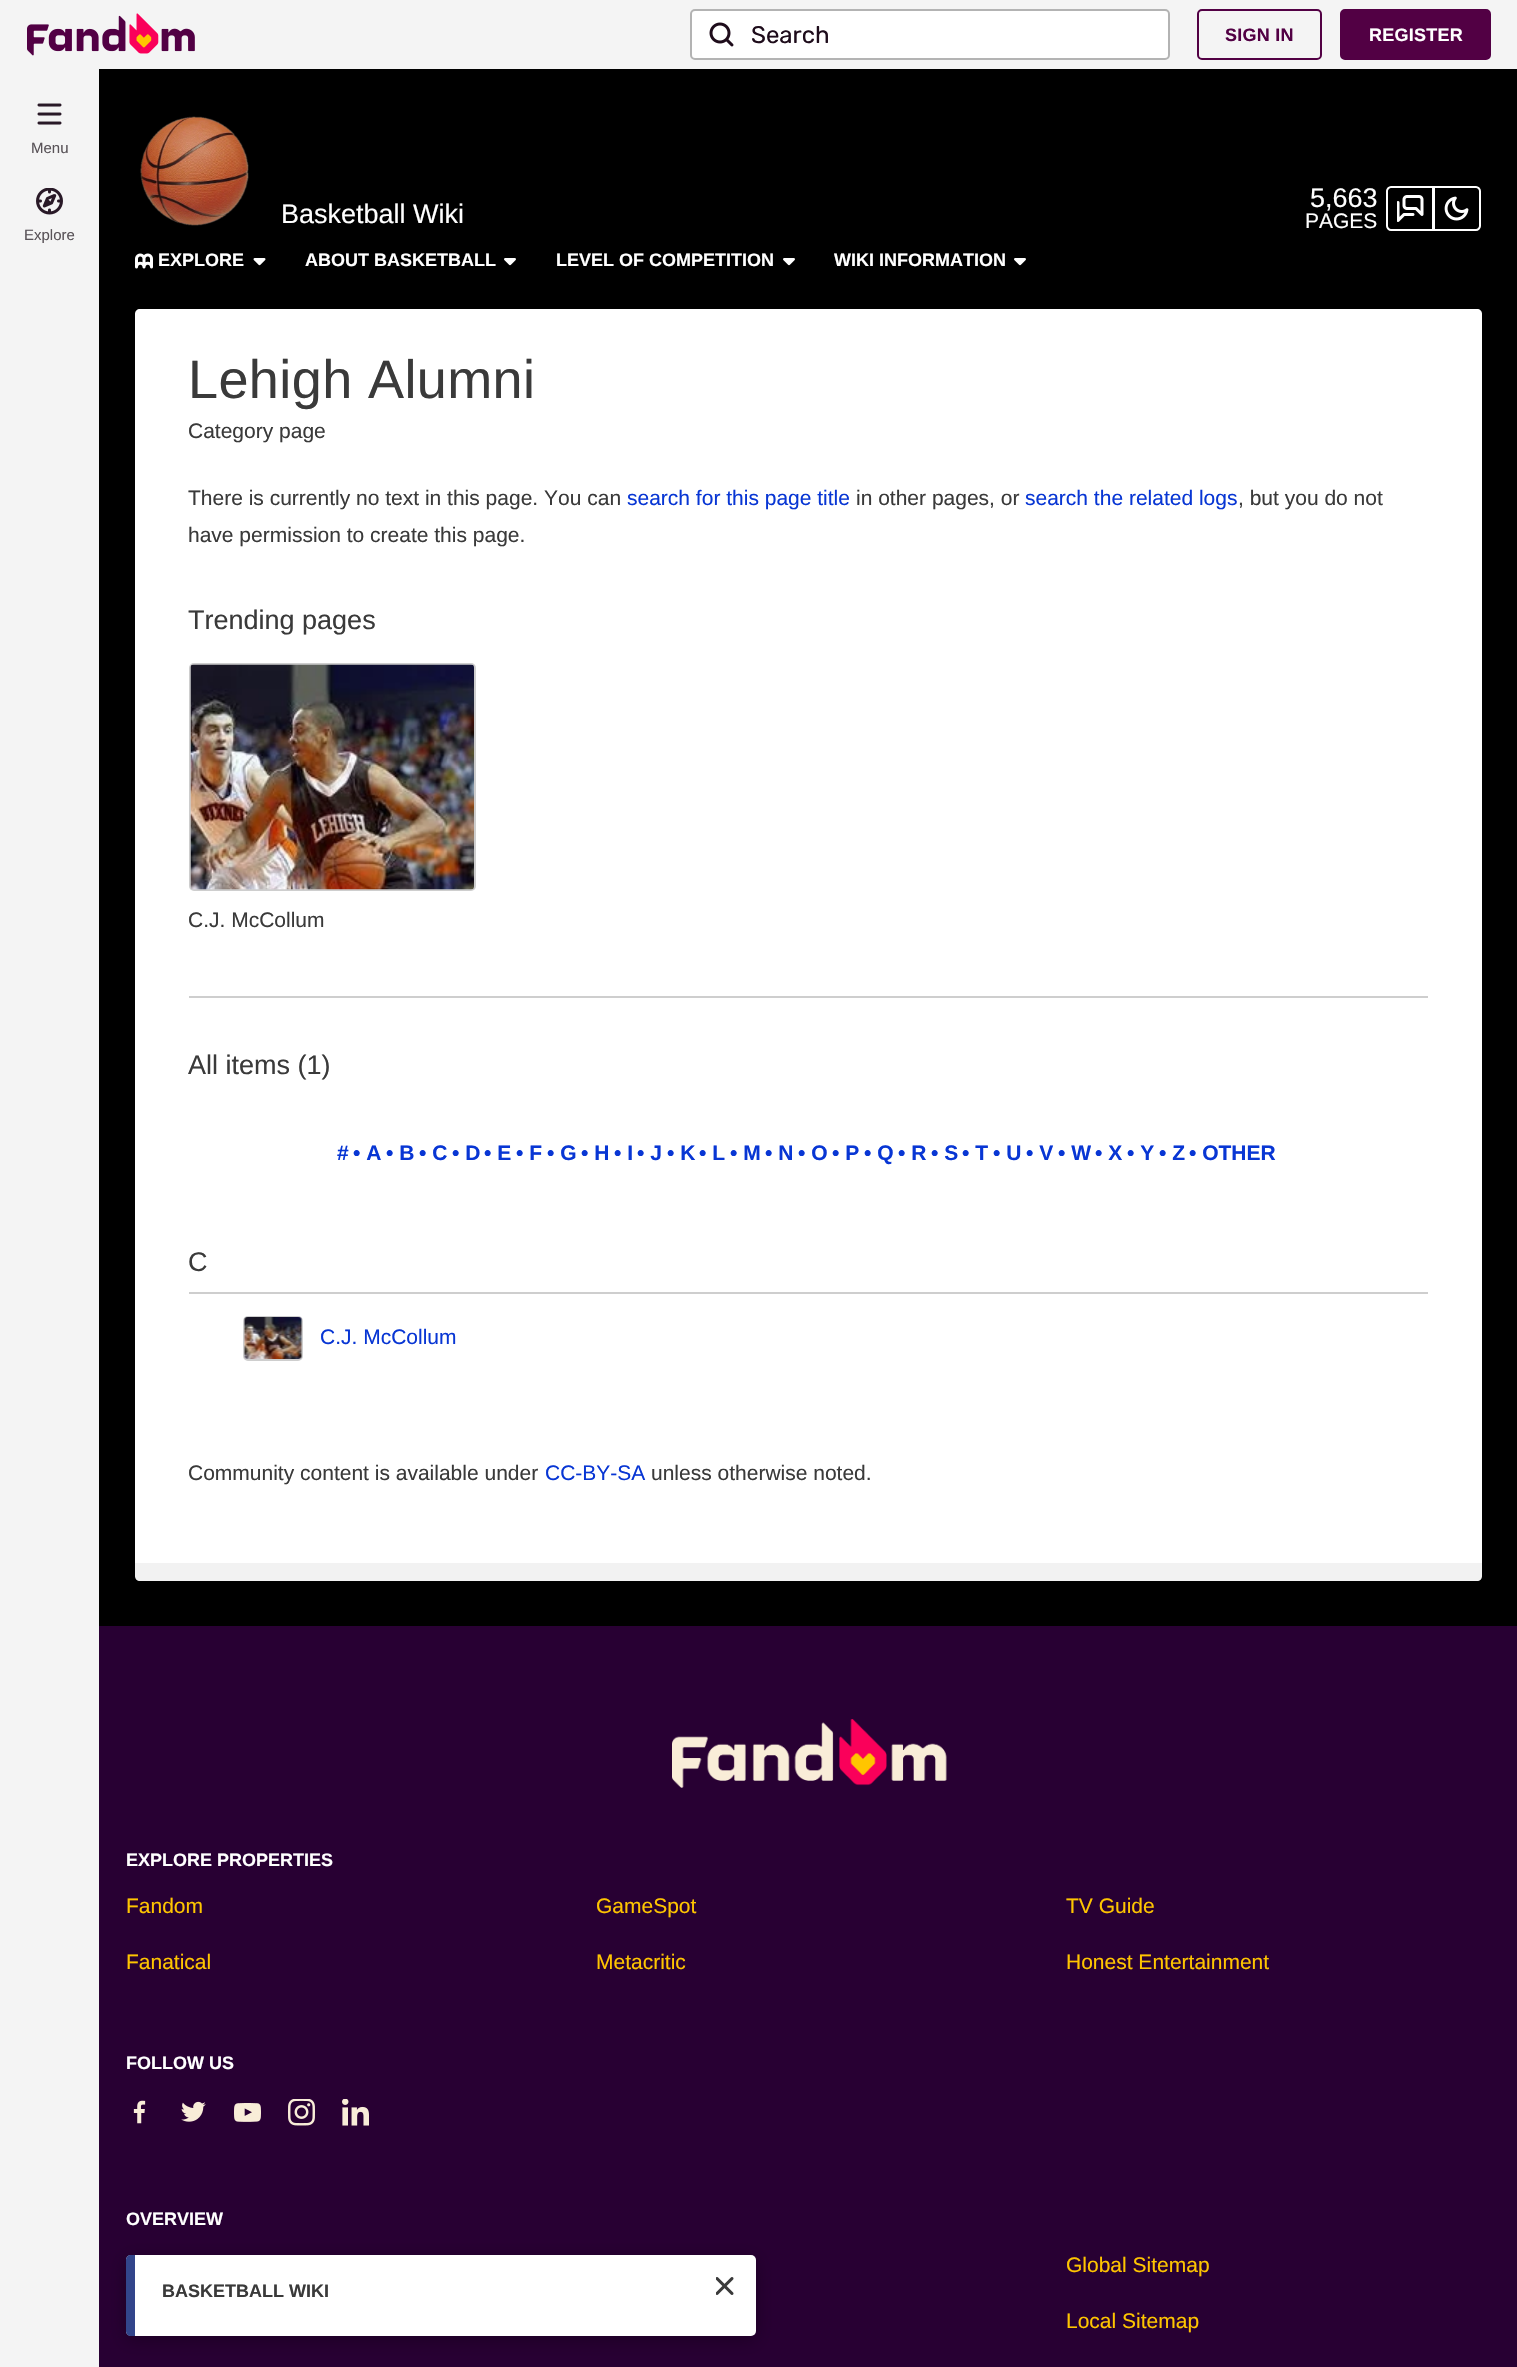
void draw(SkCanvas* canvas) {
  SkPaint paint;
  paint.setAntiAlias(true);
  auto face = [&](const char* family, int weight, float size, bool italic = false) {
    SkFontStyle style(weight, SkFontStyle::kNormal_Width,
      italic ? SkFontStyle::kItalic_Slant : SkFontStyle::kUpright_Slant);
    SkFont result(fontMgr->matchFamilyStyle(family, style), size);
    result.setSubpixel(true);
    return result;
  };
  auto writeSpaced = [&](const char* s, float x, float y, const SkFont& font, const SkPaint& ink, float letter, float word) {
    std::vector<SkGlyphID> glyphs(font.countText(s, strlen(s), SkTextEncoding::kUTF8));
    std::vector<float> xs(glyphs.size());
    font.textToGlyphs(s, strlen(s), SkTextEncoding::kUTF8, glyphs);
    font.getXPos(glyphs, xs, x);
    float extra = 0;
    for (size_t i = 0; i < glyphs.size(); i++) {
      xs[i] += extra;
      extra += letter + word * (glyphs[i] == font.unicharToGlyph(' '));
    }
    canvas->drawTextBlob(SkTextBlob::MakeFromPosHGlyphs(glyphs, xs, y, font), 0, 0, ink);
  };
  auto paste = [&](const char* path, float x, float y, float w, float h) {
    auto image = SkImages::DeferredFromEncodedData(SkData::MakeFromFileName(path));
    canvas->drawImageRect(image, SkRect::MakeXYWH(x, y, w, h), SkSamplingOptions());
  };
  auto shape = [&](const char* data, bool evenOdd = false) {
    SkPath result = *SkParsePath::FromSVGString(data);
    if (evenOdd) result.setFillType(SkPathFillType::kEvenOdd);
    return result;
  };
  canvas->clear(0xff000000);
  paint.setColor(0xfff4f4f4);
  canvas->drawRect(SkRect::MakeXYWH(0, 0, 1517, 69), paint);
  paste("img/1.png", 27, 13, 168, 43);
  paint.setColor(0xffffffff);
  canvas->drawRoundRect(SkRect::MakeXYWH(691, 10, 478, 49), 4, 4, paint);
  paint.setStroke(true);
  paint.setStrokeWidth(2);
  paint.setColor(0xffb3b3b3);
  canvas->drawRoundRect(SkRect::MakeXYWH(691, 10, 478, 49), 4, 4, paint);
  paste("img/2.png", 709, 22, 25, 25);
  paint.setColor(0xff520044);
  canvas->drawRoundRect(SkRect::MakeXYWH(1198, 10, 123, 49), 4, 4, paint);
  paint.setStroke(false);
  canvas->drawRoundRect(SkRect::MakeXYWH(1341, 10, 149, 49), 4, 4, paint);
  paint.setStroke(true);
  canvas->drawRoundRect(SkRect::MakeXYWH(1341, 10, 149, 49), 4, 4, paint);
  paint.setStroke(false);
  paint.setColor(0xff280033);
  canvas->drawRect(SkRect::MakeXYWH(99, 1626, 1418, 741), paint);
  paint.setColor(0x4d000000);
  paint.setMaskFilter(SkMaskFilter::MakeBlur(kNormal_SkBlurStyle, 9));
  canvas->drawRoundRect(SkRect::MakeXYWH(126, 2259, 630, 81), 5, 5, paint);
  paint.setMaskFilter(nullptr);
  paint.setColor(0xfff4f4f4);
  canvas->drawRect(SkRect::MakeXYWH(0, 69, 99, 2298), paint);
  paste("img/3.png", 37, 103, 25, 22);
  paste("img/4.png", 36, 188, 27, 27);
  paste("img/5.png", 140, 116, 109, 110);
  paint.setStroke(true);
  paint.setColor(0xffffffff);
  canvas->drawPath(shape("M1391 187H1433V230H1391C1389 230 1387 228 1387 226V191C1387 189 1389 187 1391 187Z"), paint);
  paste("img/6.png", 1397, 195, 27, 27);
  canvas->drawPath(shape("M1434 187H1476C1478 187 1480 189 1480 191V226C1480 228 1478 230 1476 230H1434Z"), paint);
  paste("img/7.png", 1444, 196, 25, 25);
  paste("img/8.png", 135, 253, 18, 16);
  paste("img/9.png", 253, 258, 13, 8);
  paste("img/10.png", 504, 258, 12, 8);
  paste("img/10.png", 783, 258, 12, 8);
  paste("img/10.png", 1014, 258, 12, 8);
  paint.setStroke(false);
  canvas->drawPath(shape("M140 309H1477C1480 309 1482 311 1482 314V1563H135V314C135 311 137 309 140 309Z"), paint);
  paint.setColor(0xffcecece);
  canvas->drawRect(SkRect::MakeXYWH(189, 996, 1239, 2), paint);
  paint.setStroke(true);
  canvas->drawRoundRect(SkRect::MakeXYWH(190, 664, 285, 226), 4, 4, paint);
  paste("img/11.png", 190, 664, 284, 226);
  paint.setStroke(false);
  canvas->drawRect(SkRect::MakeXYWH(189, 1292, 1239, 2), paint);
  paint.setStroke(true);
  canvas->drawRoundRect(SkRect::MakeXYWH(244, 1317, 58, 43), 4, 4, paint);
  paste("img/12.png", 244, 1317, 58, 42);
  paint.setStroke(false);
  paint.setColor(0xfff2f2f2);
  canvas->drawPath(shape("M135 1563H1482V1576C1482 1579 1480 1581 1477 1581H140C137 1581 135 1579 135 1576Z"), paint);
  paste("img/13.png", 672, 1719, 275, 69);
  paste("img/14.png", 133, 2100, 13, 24);
  paste("img/15.png", 181, 2101, 25, 21);
  paste("img/16.png", 234, 2103, 27, 19);
  paste("img/17.png", 288, 2099, 27, 27);
  paste("img/18.png", 342, 2099, 27, 27);
  paint.setColor(0xffffffff);
  canvas->drawRoundRect(SkRect::MakeXYWH(126, 2255, 630, 81), 5, 5, paint);
  paint.setColor(0xff32458b);
  canvas->drawPath(shape("M131 2255H135V2336H131C128 2336 126 2334 126 2331V2260C126 2257 128 2255 131 2255Z"), paint);
  paste("img/19.png", 716, 2277, 18, 18);
  auto f0 = face("Rubik", 400, 24);
  paint.setColor(0xff1e0c1b);
  canvas->drawString("Search", 751, 43, f0, paint);
  auto f1 = face("Liberation Sans", 700, 18);
  paint.setColor(0xff520044);
  writeSpaced("SIGN IN", 1225, 41, f1, paint, 0.25f, 0);
  paint.setColor(0xffffffff);
  writeSpaced("REGISTER", 1369, 41, f1, paint, 0.25f, 0);
  auto f2 = face("Liberation Sans", 400, 15);
  paint.setColor(0xff595358);
  canvas->drawString("Menu", 31, 153, f2, paint);
  canvas->drawString("Explore", 24, 240, f2, paint);
  auto f3 = face("Liberation Sans", 400, 27);
  paint.setColor(0xffffffff);
  canvas->drawString("Basketball Wiki", 281, 223, f3, paint);
  canvas->drawString("5,663", 1310, 207, f3, paint);
  auto f4 = face("Liberation Sans", 400, 21);
  canvas->drawString("PAGES", 1305, 228, f4, paint);
  {
    const struct { const char* s; float x, y; } items[] = {
      {"EXPLORE", 158, 266},
      {"ABOUT BASKETBALL", 305, 266},
      {"LEVEL OF COMPETITION", 556, 266},
      {"WIKI INFORMATION", 834, 266},
    };
    for (auto [s, x, y] : items) {
      canvas->drawString(s, x, y, f1, paint);
    }
  }
  auto f5 = face("Liberation Sans", 400, 54);
  paint.setColor(0xff3a3a3a);
  writeSpaced("Lehigh Alumni", 188, 398, f5, paint, 0.4f, 0);
  canvas->drawString("Category page", 188, 438, f4, paint);
  canvas->drawString("There is currently no text in this page. You can", 188, 505, f4, paint);
  paint.setColor(0xff0836d4);
  canvas->drawString("search for this page title", 627, 505, f4, paint);
  paint.setColor(0xff3a3a3a);
  canvas->drawString("in other pages, or", 856, 505, f4, paint);
  paint.setColor(0xff0836d4);
  canvas->drawString("search the related logs", 1025, 505, f4, paint);
  paint.setColor(0xff3a3a3a);
  canvas->drawString(", but you do not", 1238, 505, f4, paint);
  canvas->drawString("have permission to create this page.", 188, 542, f4, paint);
  canvas->drawString("Trending pages", 188, 629, f3, paint);
  canvas->drawString("C.J. McCollum", 188, 927, f4, paint);
  canvas->drawString("All items (1)", 188, 1074, f3, paint);
  auto f6 = face("Liberation Sans", 700, 21);
  paint.setColor(0xff0836d4);
  {
    const struct { const char* s; float x, y; } items[] = {
      {"#", 337, 1160},
      {"• A", 353, 1160},
      {"• B", 386, 1160},
      {"• C", 419, 1160},
      {"• D", 452, 1160},
      {"• E", 484, 1160},
      {"• F", 516, 1160},
      {"• G", 547, 1160},
      {"• H", 581, 1160},
      {"• I", 614, 1160},
      {"• J", 637, 1160},
      {"• K", 667, 1160},
      {"• L", 699, 1160},
      {"• M", 730, 1160},
      {"• N", 765, 1160},
      {"• O", 798, 1160},
      {"• P", 832, 1160},
      {"• Q", 864, 1160},
      {"• R", 898, 1160},
      {"• S", 931, 1160},
      {"• T", 962, 1160},
      {"• U", 993, 1160},
      {"• V", 1026, 1160},
      {"• W", 1058, 1160},
      {"• X", 1095, 1160},
      {"• Y", 1127, 1160},
      {"• Z", 1159, 1160},
      {"• OTHER", 1189, 1160},
    };
    for (auto [s, x, y] : items) {
      canvas->drawString(s, x, y, f6, paint);
    }
  }
  paint.setColor(0xff3a3a3a);
  canvas->drawString("C", 188, 1271, f3, paint);
  paint.setColor(0xff0836d4);
  canvas->drawString("C.J. McCollum", 320, 1344, f4, paint);
  paint.setColor(0xff3a3a3a);
  canvas->drawString("Community content is available under", 188, 1480, f4, paint);
  paint.setColor(0xff0836d4);
  canvas->drawString("CC-BY-SA", 545, 1480, f4, paint);
  paint.setColor(0xff3a3a3a);
  canvas->drawString("unless otherwise noted.", 651, 1480, f4, paint);
  paint.setColor(0xffffffff);
  canvas->drawString("EXPLORE PROPERTIES", 126, 1866, f1, paint);
  paint.setColor(0xffffc500);
  {
    const struct { const char* s; float x, y; } items[] = {
      {"Fandom", 126, 1913},
      {"GameSpot", 596, 1913},
      {"TV Guide", 1066, 1913},
      {"Fanatical", 126, 1969},
      {"Metacritic", 596, 1969},
      {"Honest Entertainment", 1066, 1969},
    };
    for (auto [s, x, y] : items) {
      canvas->drawString(s, x, y, f4, paint);
    }
  }
  paint.setColor(0xffffffff);
  canvas->drawString("FOLLOW US", 126, 2069, f1, paint);
  canvas->drawString("OVERVIEW", 126, 2225, f1, paint);
  paint.setColor(0xffffc500);
  canvas->drawString("Global Sitemap", 1066, 2272, f4, paint);
  canvas->drawString("Local Sitemap", 1066, 2328, f4, paint);
  paint.setColor(0xff3a3a3a);
  canvas->drawString("BASKETBALL WIKI", 162, 2297, f1, paint);
}
